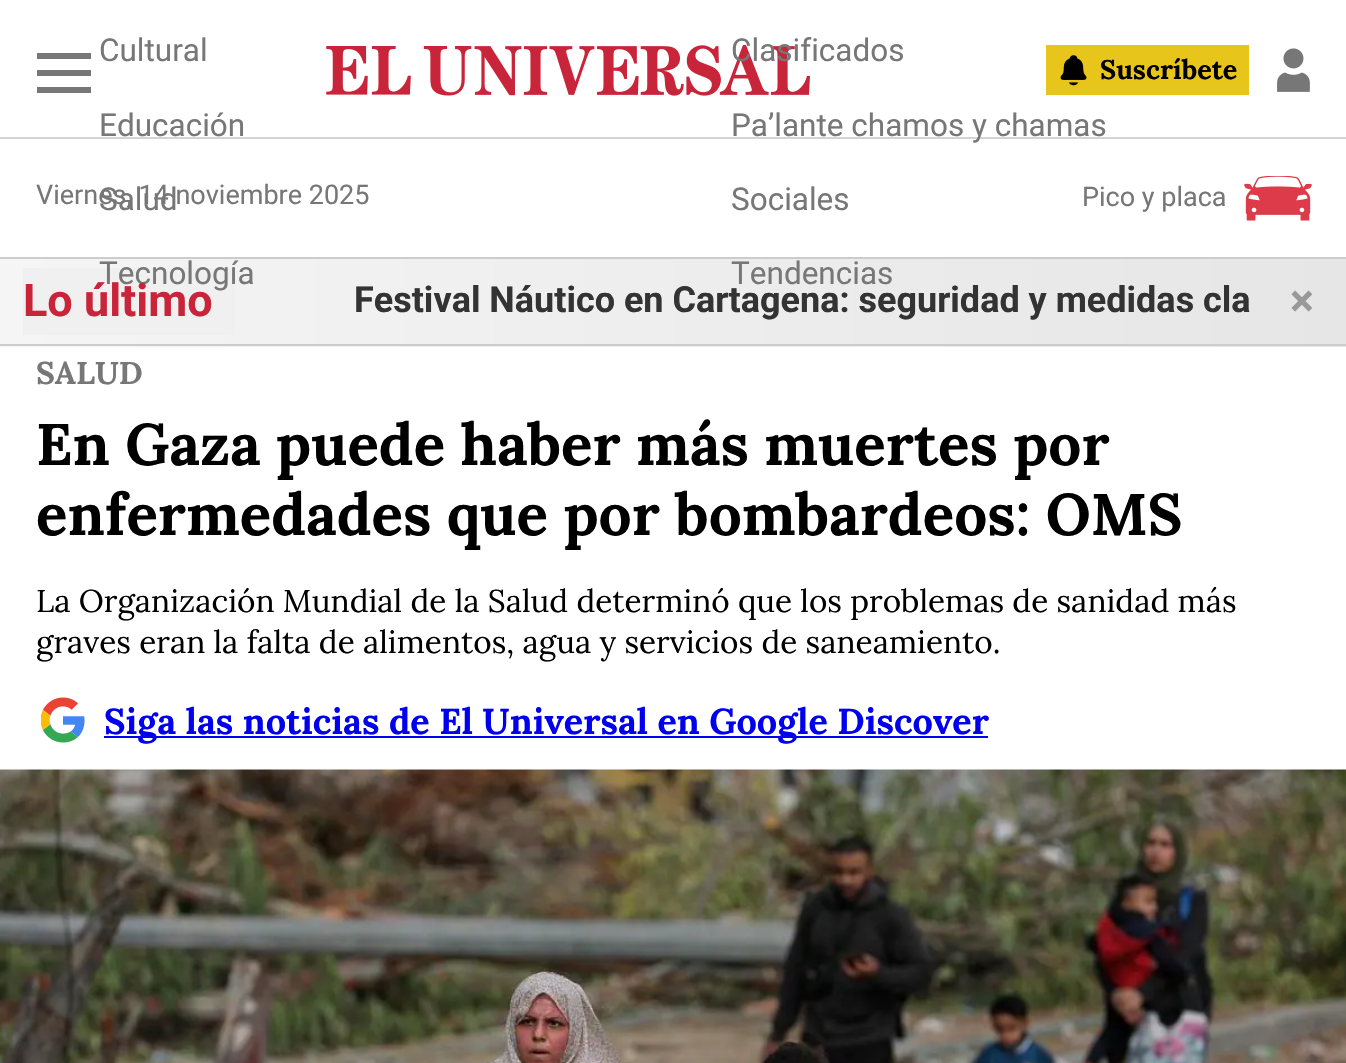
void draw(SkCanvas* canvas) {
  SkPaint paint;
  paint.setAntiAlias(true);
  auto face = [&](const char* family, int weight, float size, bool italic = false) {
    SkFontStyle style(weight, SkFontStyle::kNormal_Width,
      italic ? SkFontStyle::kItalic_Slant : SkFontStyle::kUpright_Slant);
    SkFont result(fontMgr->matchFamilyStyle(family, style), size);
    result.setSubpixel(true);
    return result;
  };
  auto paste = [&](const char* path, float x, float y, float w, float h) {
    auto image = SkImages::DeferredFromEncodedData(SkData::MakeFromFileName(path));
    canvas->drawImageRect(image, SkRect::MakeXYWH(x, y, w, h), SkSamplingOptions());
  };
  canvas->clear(0xffffffff);
  {
    const struct { float x, y, w, h; SkColor color; } items[] = {
      {0, 137, 1346, 2, 0xffd4d4d4},
      {37, 53, 54, 6, 0xff777777},
      {37, 70, 54, 6, 0xff777777},
      {37, 87, 54, 6, 0xff777777},
    };
    for (auto [x, y, w, h, color] : items) {
      paint.setColor(color);
      canvas->drawRect(SkRect::MakeXYWH(x, y, w, h), paint);
    }
  }
  paste("img/1.png", 326, 45, 484, 51);
  paint.setColor(0xffe8c51a);
  canvas->drawRect(SkRect::MakeXYWH(1046, 45, 203, 50), paint);
  paste("img/2.png", 1060, 55, 27, 31);
  paste("img/3.png", 1277, 48, 33, 44);
  paste("img/4.png", 1244, 176, 68, 45);
  {
    const SkColor colors[] = {0xfff5f5f5, 0xffe6e6e6};
    const float stops[] = {0, 1};
    const SkPoint ends[] = {{0, 302}, {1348, 301}};
    paint.setShader(SkGradientShader::MakeLinear(ends, colors, stops, 2, SkTileMode::kClamp));
    paint.setAlpha(255);
  }
  canvas->drawRect(SkRect::MakeXYWH(0, 259, 1346, 88), paint);
  paint.setShader(nullptr);
  paint.setColor(0xffcccccc);
  canvas->drawRect(SkRect::MakeXYWH(0, 257, 1346, 2), paint);
  canvas->drawRect(SkRect::MakeXYWH(0, 344, 1346, 2), paint);
  {
    const SkColor colors[] = {0xfff0f0f0, 0x00f0f0f0};
    const float stops[] = {0.8f, 1};
    const SkPoint ends[] = {{-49, 302}, {302, 302}};
    paint.setShader(SkGradientShader::MakeLinear(ends, colors, stops, 2, SkTileMode::kClamp));
    paint.setAlpha(255);
  }
  canvas->drawRect(SkRect::MakeXYWH(23, 268, 213, 67), paint);
  paste("img/5.png", 41, 697, 44, 46);
  paint.setShader(nullptr);
  paint.setColor(0xff0000ee);
  canvas->drawRect(SkRect::MakeXYWH(104, 736, 884, 2), paint);
  paste("img/6.png", 0, 769, 1346, 294);
  auto f0 = face("Roboto", 400, 31.5f);
  paint.setColor(0xff777777);
  {
    const struct { const char* s; float x, y; } items[] = {
      {"Cultural", 99, 61},
      {"Clasificados", 731, 61},
      {"Educación", 99, 136},
      {"Pa’lante chamos y chamas", 731, 136},
      {"Sociales", 731, 210},
      {"Tecnología", 99, 284},
      {"Tendencias", 731, 284},
    };
    for (auto [s, x, y] : items) {
      canvas->drawString(s, x, y, f0, paint);
    }
  }
  auto f1 = face("Lora", 700, 27);
  paint.setColor(0xff000000);
  canvas->drawString("Suscríbete", 1100, 79, f1, paint);
  auto f2 = face("Roboto", 400, 27);
  paint.setColor(0xff777777);
  canvas->drawString("Viernes, 14 noviembre 2025", 36, 204, f2, paint);
  canvas->drawString("Salud", 99, 210, f0, paint);
  canvas->drawString("Pico y placa", 1082, 206, f2, paint);
  auto f3 = face("Roboto", 700, 45);
  paint.setColor(0xffc8243a);
  canvas->drawString("Lo último", 23, 316, f3, paint);
  auto f4 = face("Roboto", 700, 36);
  paint.setColor(0xff333333);
  canvas->drawString("Festival Náutico en Cartagena: seguridad y medidas cla", 354, 312, f4, paint);
  paint.setColor(0xff999999);
  canvas->drawString("×", 1290, 316, f3, paint);
  auto f5 = face("Lora", 700, 31.5f);
  paint.setColor(0xff777777);
  canvas->drawString("SALUD", 36, 384, f5, paint);
  auto f6 = face("Lora", 700, 58.5f);
  paint.setColor(0xff000000);
  canvas->drawString("En Gaza puede haber más muertes por", 36, 465, f6, paint);
  canvas->drawString("enfermedades que por bombardeos: OMS", 36, 535, f6, paint);
  auto f7 = face("Lora", 400, 31.5f);
  canvas->drawString("La Organización Mundial de la Salud determinó que los problemas de sanidad más", 36, 612, f7, paint);
  canvas->drawString("graves eran la falta de alimentos, agua y servicios de saneamiento.", 36, 653, f7, paint);
  auto f8 = face("Lora", 700, 36);
  paint.setColor(0xff0000ee);
  canvas->drawString("Siga las noticias de El Universal en Google Discover", 104, 734, f8, paint);
}
